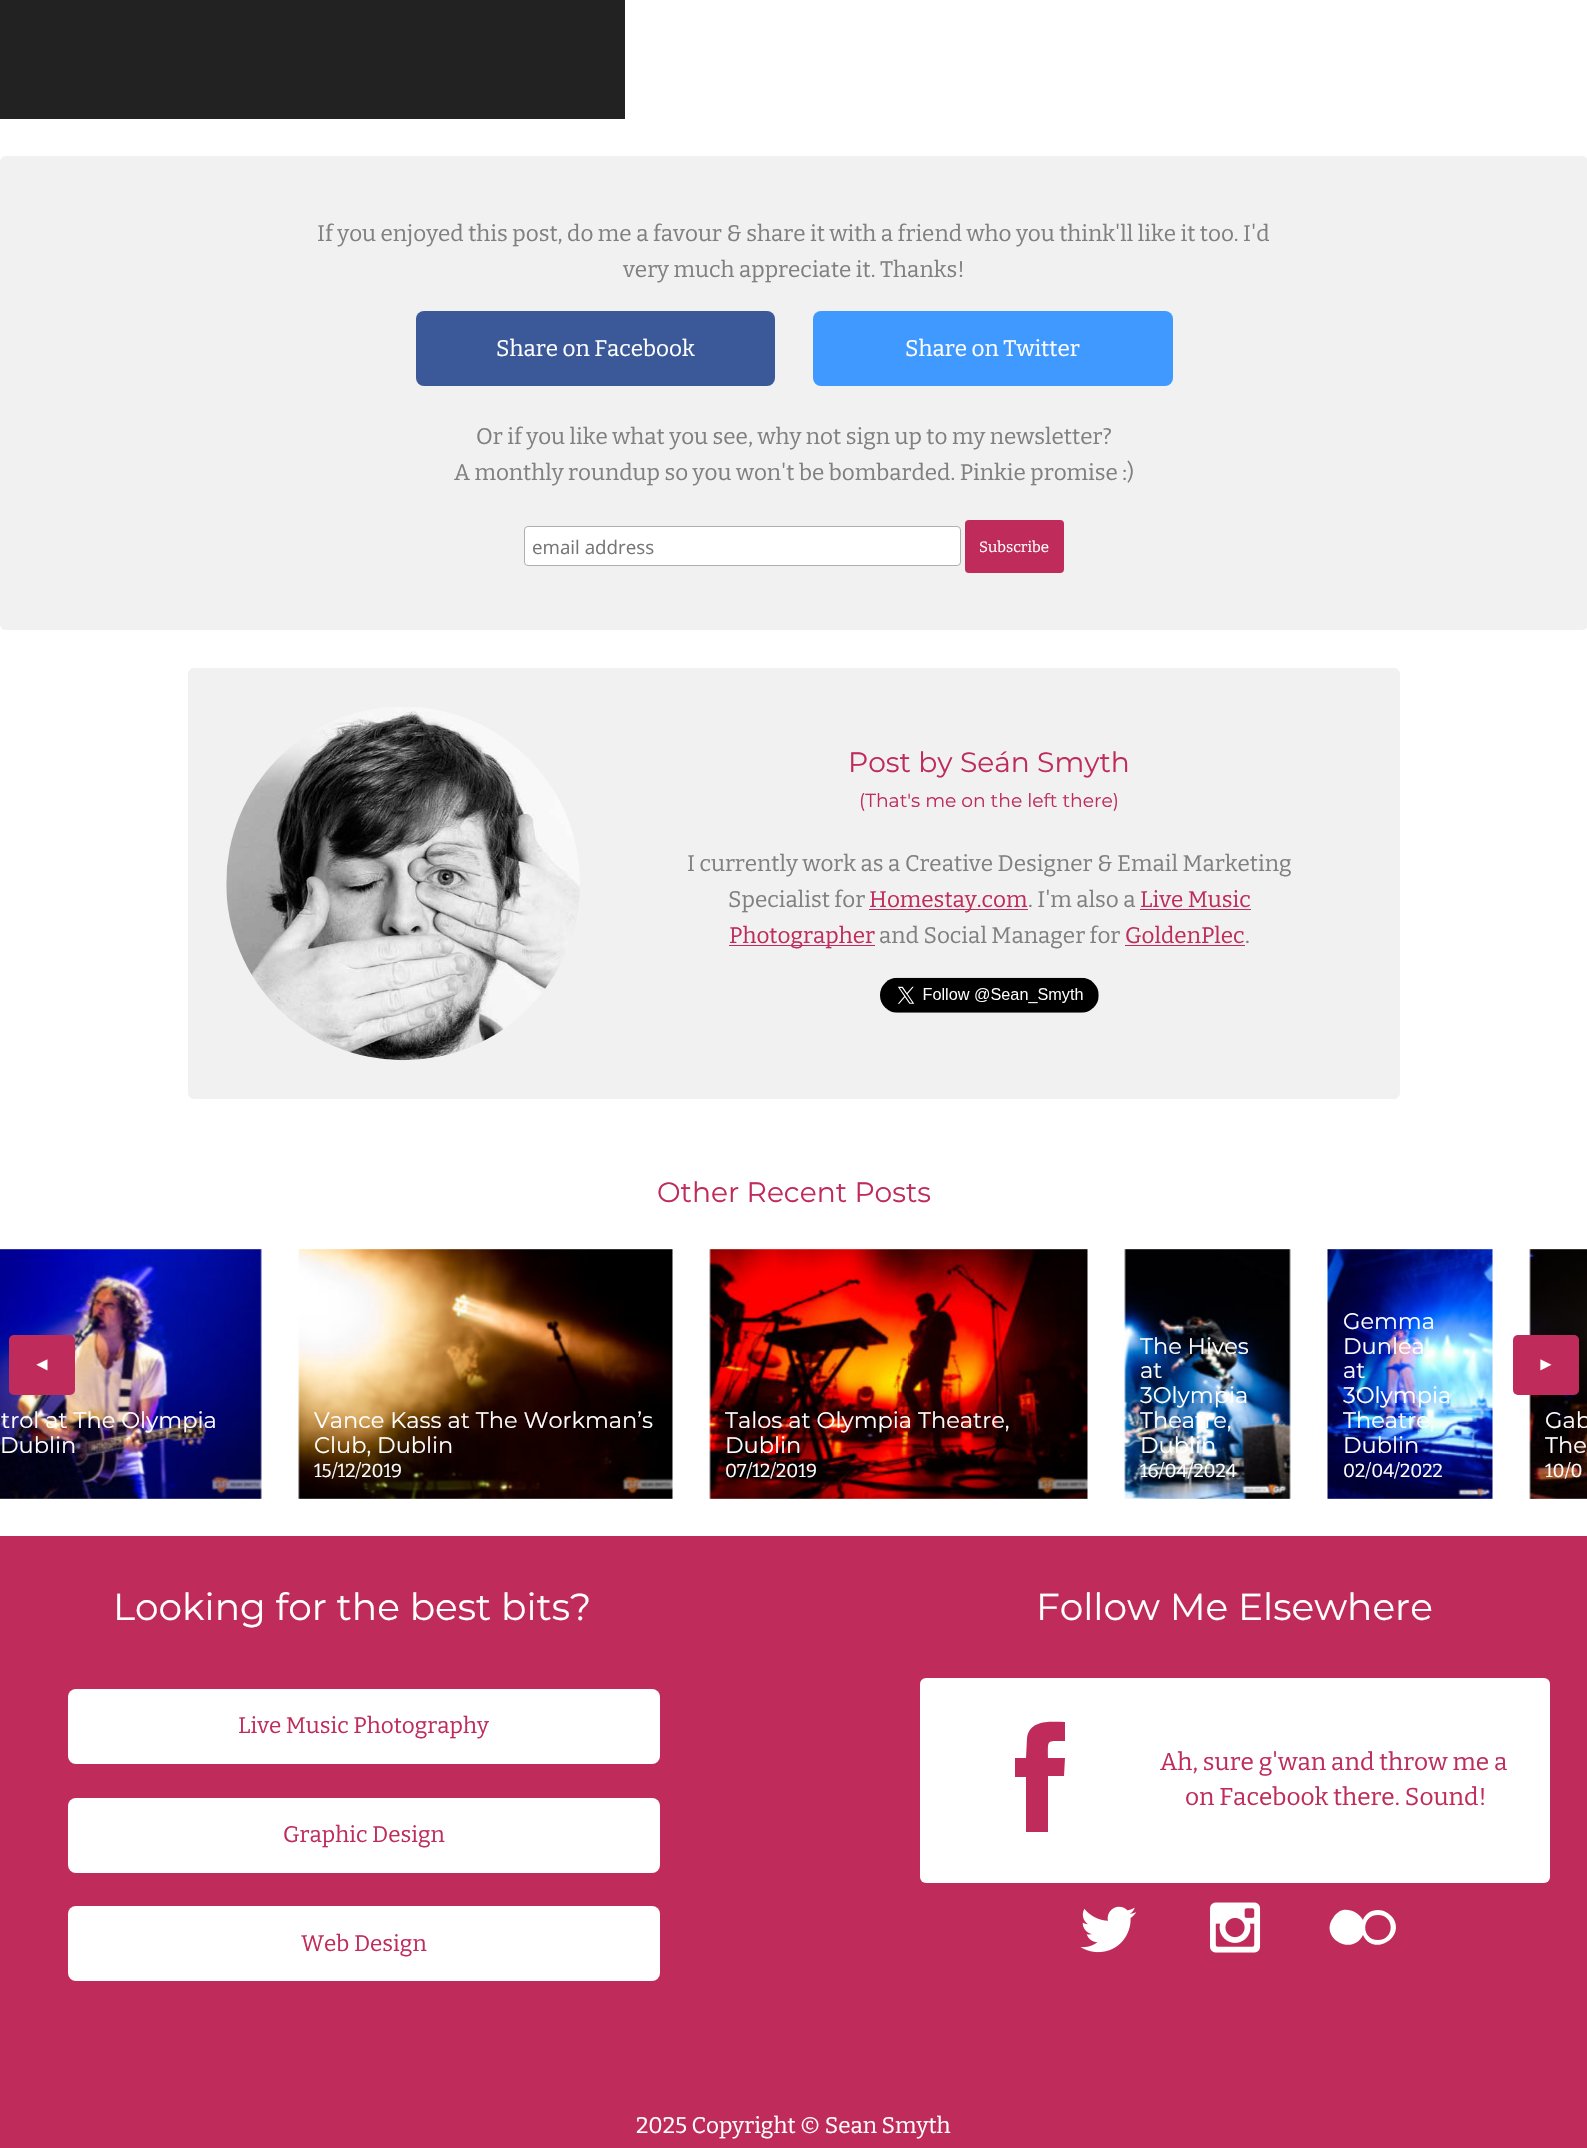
void draw(SkCanvas* canvas) {
  SkPaint paint;
  paint.setAntiAlias(true);
  auto face = [&](const char* family, int weight, float size, bool italic = false) {
    SkFontStyle style(weight, SkFontStyle::kNormal_Width,
      italic ? SkFontStyle::kItalic_Slant : SkFontStyle::kUpright_Slant);
    SkFont result(fontMgr->matchFamilyStyle(family, style), size);
    result.setSubpixel(true);
    return result;
  };
  auto paste = [&](const char* path, float x, float y, float w, float h) {
    auto image = SkImages::DeferredFromEncodedData(SkData::MakeFromFileName(path));
    canvas->drawImageRect(image, SkRect::MakeXYWH(x, y, w, h), SkSamplingOptions());
  };
  auto shape = [&](const char* data, bool evenOdd = false) {
    SkPath result = *SkParsePath::FromSVGString(data);
    if (evenOdd) result.setFillType(SkPathFillType::kEvenOdd);
    return result;
  };
  canvas->clear(0xffffffff);
  paint.setColor(0xff222222);
  canvas->drawRect(SkRect::MakeXYWH(0, 0, 625, 119), paint);
  paint.setColor(0xfff1f1f1);
  canvas->drawRoundRect(SkRect::MakeXYWH(0, 156, 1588, 474), 6, 6, paint);
  paint.setColor(0xff3b5998);
  canvas->drawRoundRect(SkRect::MakeXYWH(416, 311, 359, 75), 8, 8, paint);
  paint.setColor(0xff4099ff);
  canvas->drawRoundRect(SkRect::MakeXYWH(813, 311, 360, 75), 8, 8, paint);
  paint.setColor(0xffffffff);
  canvas->drawRoundRect(SkRect::MakeXYWH(524.5f, 526.5f, 436, 39), 3.5f, 3.5f, paint);
  paint.setStroke(true);
  paint.setStrokeWidth(1);
  paint.setColor(0xffabb0b2);
  canvas->drawRoundRect(SkRect::MakeXYWH(524.5f, 526.5f, 436, 39), 3.5f, 3.5f, paint);
  paint.setStroke(false);
  paint.setColor(0xffbf2c5b);
  canvas->drawRoundRect(SkRect::MakeXYWH(965, 520, 99, 53), 4, 4, paint);
  paint.setColor(0xfff1f1f1);
  canvas->drawRoundRect(SkRect::MakeXYWH(188.5f, 668.5f, 1211, 430), 5.5f, 5.5f, paint);
  paint.setStroke(true);
  canvas->drawRoundRect(SkRect::MakeXYWH(188.5f, 668.5f, 1211, 430), 5.5f, 5.5f, paint);
  paste("img/1.png", 226, 707, 354, 354);
  paint.setStroke(false);
  {
    const struct { float x, y, w, h; SkColor color; } items[] = {
      {869, 909, 159, 1, 0xffbf2c5b},
      {1140, 909, 111, 1, 0xffbf2c5b},
      {729, 945, 146, 1, 0xffbf2c5b},
      {1125, 945, 120, 1, 0xffbf2c5b},
    };
    for (auto [x, y, w, h, color] : items) {
      paint.setColor(color);
      canvas->drawRect(SkRect::MakeXYWH(x, y, w, h), paint);
    }
  }
  paste("img/2.png", 880, 977, 219, 36);
  paste("img/3.png", 0, 1249, 262, 250);
  paste("img/4.png", 298, 1249, 375, 250);
  paste("img/5.png", 709, 1249, 379, 250);
  paste("img/6.png", 1124, 1249, 167, 250);
  paste("img/7.png", 1327, 1249, 166, 250);
  paste("img/8.png", 1529, 1249, 58, 250);
  canvas->drawRoundRect(SkRect::MakeXYWH(9, 1335, 66, 60), 5, 5, paint);
  canvas->drawRoundRect(SkRect::MakeXYWH(1513, 1335, 66, 60), 5, 5, paint);
  canvas->drawRect(SkRect::MakeXYWH(0, 1536, 1587, 612), paint);
  paint.setColor(0xffffffff);
  canvas->drawRoundRect(SkRect::MakeXYWH(68, 1689, 592, 75), 8, 8, paint);
  canvas->drawRoundRect(SkRect::MakeXYWH(68, 1798, 592, 75), 8, 8, paint);
  canvas->drawRoundRect(SkRect::MakeXYWH(68, 1906, 592, 75), 8, 8, paint);
  canvas->drawRoundRect(SkRect::MakeXYWH(920, 1678, 630, 205), 6, 6, paint);
  paint.setColor(0xffbf2c5b);
  canvas->drawPath(shape("M1026 1758H1015V1777H1026V1832H1048V1776H1064L1065 1758H1048C1048 1739 1046 1741 1065 1741V1722C1051 1722 1030 1719 1027 1738Z"), paint);
  paste("img/9.png", 1080, 1906, 57, 47);
  paste("img/10.png", 1210, 1902, 51, 51);
  paint.setColor(0xffffffff);
  canvas->drawPath(shape("M1378 1910C1371 1910 1365 1914 1363 1920C1359 1913 1351 1909 1343 1910C1339 1911 1335 1914 1333 1918C1319 1938 1352 1957 1363 1935C1373 1957 1406 1938 1393 1918C1389 1913 1384 1910 1378 1910ZM1378 1940C1361 1940 1361 1915 1378 1915C1395 1915 1395 1940 1378 1940Z"), paint);
  auto f0 = face("Bitter", 100, 22.5f);
  paint.setColor(0xff808080);
  canvas->drawString("If you enjoyed this post, do me a favour & share it with a friend who you think'll like it too. I'd", 317, 241, f0, paint);
  canvas->drawString("very much appreciate it. Thanks!", 623, 277, f0, paint);
  paint.setColor(0xffffffff);
  canvas->drawString("Share on Facebook", 496, 356, f0, paint);
  canvas->drawString("Share on Twitter", 905, 356, f0, paint);
  paint.setColor(0xff808080);
  canvas->drawString("Or if you like what you see, why not sign up to my newsletter?", 476, 444, f0, paint);
  canvas->drawString("A monthly roundup so you won't be bombarded. Pinkie promise :)", 454, 480, f0, paint);
  auto f1 = face("Open Sans", 400, 18.75f);
  paint.setColor(0xff757575);
  canvas->drawString("email address", 532, 554, f1, paint);
  auto f2 = face("Bitter", 100, 15);
  paint.setColor(0xffffffff);
  canvas->drawString("Subscribe", 979, 552, f2, paint);
  auto f3 = face("Montserrat", 400, 28.1f);
  paint.setColor(0xffbf2c5b);
  canvas->drawString("Post by Seán Smyth", 848, 772, f3, paint);
  auto f4 = face("Montserrat", 400, 18.75f);
  canvas->drawString("(That's me on the left there)", 859, 807, f4, paint);
  paint.setColor(0xff808080);
  canvas->drawString("I currently work as a Creative Designer & Email Marketing", 687, 871, f0, paint);
  canvas->drawString("Specialist for", 728, 907, f0, paint);
  paint.setColor(0xffbf2c5b);
  canvas->drawString("Homestay.com", 869, 907, f0, paint);
  paint.setColor(0xff808080);
  canvas->drawString(". I'm also a", 1028, 907, f0, paint);
  paint.setColor(0xffbf2c5b);
  canvas->drawString("Live Music", 1140, 907, f0, paint);
  canvas->drawString("Photographer", 729, 943, f0, paint);
  paint.setColor(0xff808080);
  canvas->drawString("and Social Manager for", 879, 943, f0, paint);
  paint.setColor(0xffbf2c5b);
  canvas->drawString("GoldenPlec", 1125, 943, f0, paint);
  paint.setColor(0xff808080);
  canvas->drawString(".", 1245, 943, f0, paint);
  paint.setColor(0xffbf2c5b);
  canvas->drawString("Other Recent Posts", 657, 1202, f3, paint);
  auto f5 = face("Montserrat", 400, 22.5f);
  paint.setColor(0xffffffff);
  {
    const struct { const char* s; float x, y; } items[] = {
      {"trol at The Olympia", 1, 1428},
      {"Dublin", 0, 1453},
      {"Vance Kass at The Workman’s", 314, 1428},
      {"Club, Dublin", 314, 1453},
    };
    for (auto [s, x, y] : items) {
      canvas->drawString(s, x, y, f5, paint);
    }
  }
  auto f6 = face("Bitter", 100, 18.75f);
  canvas->drawString("15/12/2019", 314, 1477, f6, paint);
  canvas->drawString("Talos at Olympia Theatre,", 725, 1428, f5, paint);
  canvas->drawString("Dublin", 725, 1453, f5, paint);
  canvas->drawString("07/12/2019", 725, 1477, f6, paint);
  {
    const struct { const char* s; float x, y; } items[] = {
      {"The Hives", 1140, 1354},
      {"at", 1140, 1378},
      {"3Olympia", 1140, 1403},
      {"Theatre,", 1140, 1428},
      {"Dublin", 1140, 1453},
    };
    for (auto [s, x, y] : items) {
      canvas->drawString(s, x, y, f5, paint);
    }
  }
  canvas->drawString("16/04/2024", 1140, 1477, f6, paint);
  {
    const struct { const char* s; float x, y; } items[] = {
      {"Gemma", 1343, 1329},
      {"Dunlea", 1343, 1354},
      {"at", 1343, 1378},
      {"3Olympia", 1343, 1403},
      {"Theatre,", 1343, 1428},
      {"Dublin", 1343, 1453},
    };
    for (auto [s, x, y] : items) {
      canvas->drawString(s, x, y, f5, paint);
    }
  }
  canvas->drawString("02/04/2022", 1343, 1477, f6, paint);
  canvas->drawString("Gab", 1545, 1428, f5, paint);
  canvas->drawString("The", 1545, 1453, f5, paint);
  canvas->drawString("10/0", 1545, 1477, f6, paint);
  auto f7 = face("Liberation Sans", 400, 18);
  canvas->drawString("◄", 33, 1370, f7, paint);
  canvas->drawString("►", 1537, 1370, f7, paint);
  auto f8 = face("Montserrat", 400, 37.5f);
  canvas->drawString("Looking for the best bits?", 113, 1620, f8, paint);
  paint.setColor(0xffbf2c5b);
  {
    const struct { const char* s; float x, y; } items[] = {
      {"Live Music Photography", 238, 1733},
      {"Graphic Design", 283, 1842},
      {"Web Design", 301, 1951},
    };
    for (auto [s, x, y] : items) {
      canvas->drawString(s, x, y, f0, paint);
    }
  }
  paint.setColor(0xffffffff);
  canvas->drawString("Follow Me Elsewhere", 1036, 1620, f8, paint);
  auto f9 = face("Bitter", 100, 24.4f);
  paint.setColor(0xffbf2c5b);
  canvas->drawString("Ah, sure g'wan and throw me a", 1160, 1770, f9, paint);
  canvas->drawString("on Facebook there. Sound!", 1185, 1805, f9, paint);
  paint.setColor(0xffffffff);
  canvas->drawString("2025 Copyright © Sean Smyth", 636, 2133, f0, paint);
}
